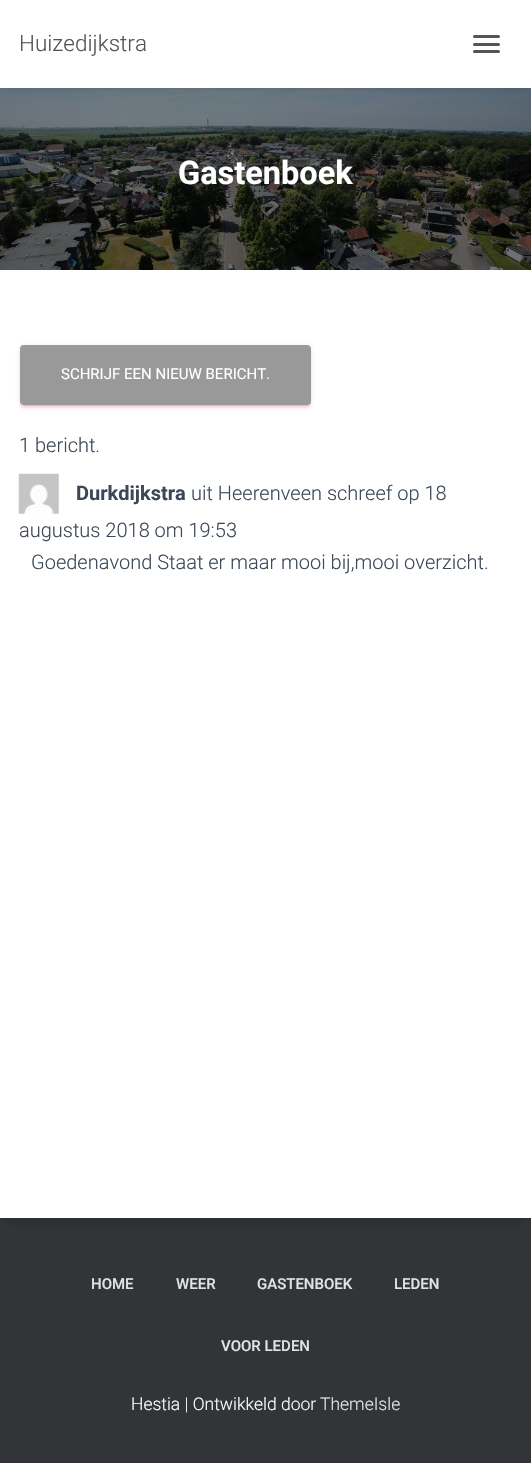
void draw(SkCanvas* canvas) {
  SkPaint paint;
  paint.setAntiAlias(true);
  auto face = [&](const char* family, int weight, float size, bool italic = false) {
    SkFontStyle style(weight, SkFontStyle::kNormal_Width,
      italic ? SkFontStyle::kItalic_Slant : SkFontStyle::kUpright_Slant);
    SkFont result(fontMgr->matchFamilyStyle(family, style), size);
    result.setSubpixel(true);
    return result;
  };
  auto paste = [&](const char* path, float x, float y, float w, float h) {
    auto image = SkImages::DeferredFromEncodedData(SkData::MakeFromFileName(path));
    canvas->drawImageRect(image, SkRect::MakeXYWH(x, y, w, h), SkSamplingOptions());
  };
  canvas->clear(0xff323437);
  paste("img/1.png", 0, 88, 531, 182);
  paint.setColor(0x6b000000);
  paint.setMaskFilter(SkMaskFilter::MakeBlur(kNormal_SkBlurStyle, 6));
  canvas->drawRect(SkRect::MakeXYWH(8, 9, 516, 72), paint);
  paint.setMaskFilter(nullptr);
  paint.setColor(0xffffffff);
  canvas->drawRect(SkRect::MakeXYWH(0, 0, 531, 88), paint);
  paint.setColor(0xff555555);
  canvas->drawRoundRect(SkRect::MakeXYWH(473, 35, 27, 3), 1.5f, 1.5f, paint);
  canvas->drawRoundRect(SkRect::MakeXYWH(473, 43, 27, 3), 1.5f, 1.5f, paint);
  canvas->drawRoundRect(SkRect::MakeXYWH(473, 50, 27, 3), 1.5f, 1.5f, paint);
  paint.setColor(0x33000000);
  paint.setMaskFilter(SkMaskFilter::MakeBlur(kNormal_SkBlurStyle, 6));
  canvas->drawRect(SkRect::MakeXYWH(6, 286, 519, 935), paint);
  paint.setMaskFilter(nullptr);
  paint.setColor(0xffffffff);
  canvas->drawRect(SkRect::MakeXYWH(0, 270, 531, 948), paint);
  paint.setColor(0x1fe91e63);
  paint.setMaskFilter(SkMaskFilter::MakeBlur(kNormal_SkBlurStyle, 3));
  canvas->drawRoundRect(SkRect::MakeXYWH(20, 346, 291, 60), 4, 4, paint);
  paint.setMaskFilter(nullptr);
  paint.setColor(0x33e91e63);
  paint.setMaskFilter(SkMaskFilter::MakeBlur(kNormal_SkBlurStyle, 0.5f));
  canvas->drawRoundRect(SkRect::MakeXYWH(23, 351, 286, 55), 1, 1, paint);
  paint.setMaskFilter(nullptr);
  paint.setColor(0x24e91e63);
  paint.setMaskFilter(SkMaskFilter::MakeBlur(kNormal_SkBlurStyle, 1));
  canvas->drawRoundRect(SkRect::MakeXYWH(20, 348, 291, 60), 4, 4, paint);
  paint.setMaskFilter(nullptr);
  paint.setColor(0xff999999);
  canvas->drawRoundRect(SkRect::MakeXYWH(20, 345, 291, 60), 4, 4, paint);
  paste("img/2.png", 18, 473, 41, 41);
  auto f0 = face("Roboto", 300, 22.5f);
  paint.setColor(0xff555555);
  canvas->drawString("Huizedijkstra", 19, 51, f0, paint);
  auto f1 = face("Roboto", 700, 32.5f);
  paint.setColor(0xffffffff);
  canvas->drawString("Gastenboek", 178, 184, f1, paint);
  auto f2 = face("Roboto", 400, 15);
  canvas->drawString("SCHRIJF EEN NIEUW BERICHT.", 61, 379, f2, paint);
  auto f3 = face("Roboto", 300, 20);
  paint.setColor(0xff3c4858);
  canvas->drawString("1 bericht.", 19, 452, f3, paint);
  auto f4 = face("Roboto", 700, 20);
  canvas->drawString("Durkdijkstra", 76, 500, f4, paint);
  {
    const struct { const char* s; float x, y; } items[] = {
      {"uit Heerenveen schreef op 18", 191, 500},
      {"augustus 2018 om 19:53", 19, 537},
      {"Goedenavond Staat er maar mooi bij,mooi overzicht.", 31, 569},
    };
    for (auto [s, x, y] : items) {
      canvas->drawString(s, x, y, f3, paint);
    }
  }
  auto f5 = face("Roboto", 500, 15);
  paint.setColor(0xffe2e3e3);
  {
    const struct { const char* s; float x, y; } items[] = {
      {"HOME", 91, 1289},
      {"WEER", 176, 1289},
      {"GASTENBOEK", 257, 1289},
      {"LEDEN", 394, 1289},
      {"VOOR LEDEN", 221, 1351},
    };
    for (auto [s, x, y] : items) {
      canvas->drawString(s, x, y, f5, paint);
    }
  }
  auto f6 = face("Roboto", 300, 17.5f);
  paint.setColor(0xffffffff);
  canvas->drawString("Hestia | Ontwikkeld door", 131, 1410, f6, paint);
  paint.setColor(0xffe2e3e3);
  canvas->drawString("ThemeIsle", 320, 1410, f6, paint);
}
